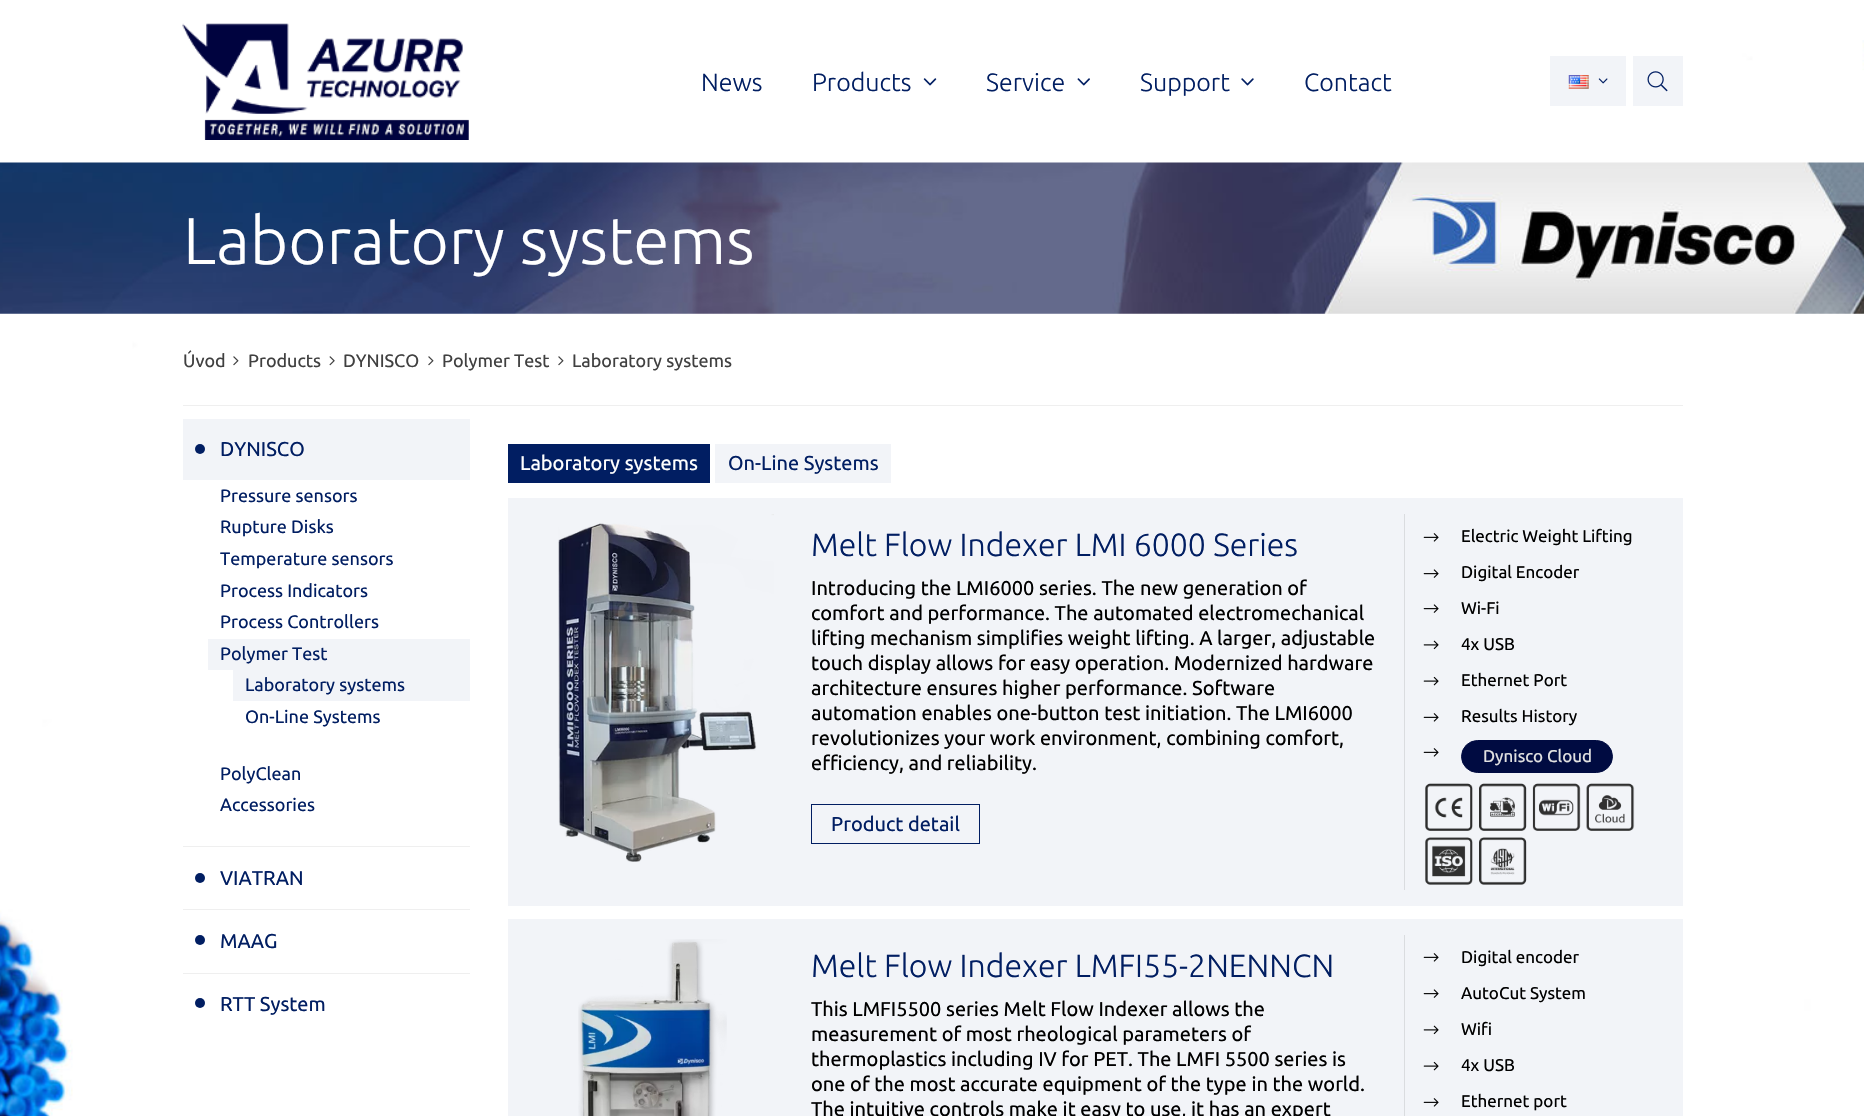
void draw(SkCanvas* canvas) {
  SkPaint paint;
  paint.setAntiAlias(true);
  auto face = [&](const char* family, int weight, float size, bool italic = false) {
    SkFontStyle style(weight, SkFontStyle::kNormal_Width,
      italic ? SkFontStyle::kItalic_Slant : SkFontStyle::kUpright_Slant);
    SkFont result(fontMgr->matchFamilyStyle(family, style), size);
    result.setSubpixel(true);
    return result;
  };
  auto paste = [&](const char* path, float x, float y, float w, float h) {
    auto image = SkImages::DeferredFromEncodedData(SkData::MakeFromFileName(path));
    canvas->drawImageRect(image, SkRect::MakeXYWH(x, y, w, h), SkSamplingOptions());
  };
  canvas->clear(0xffffffff);
  paste("img/1.png", 0, 40, 1864, 1076);
  paste("img/2.png", 182, 23, 287, 117);
  paste("img/3.png", 923, 78, 14, 8);
  paste("img/4.png", 1077, 78, 13, 8);
  paste("img/5.png", 1241, 78, 13, 8);
  paint.setColor(0xfff2f4f8);
  canvas->drawRect(SkRect::MakeXYWH(1550, 56, 76, 50), paint);
  paste("img/6.png", 1568, 75, 21, 14);
  paste("img/7.png", 1598, 78, 10, 6);
  canvas->drawRect(SkRect::MakeXYWH(1633, 56, 50, 50), paint);
  paste("img/8.png", 1647, 71, 21, 21);
  paste("img/9.png", 0, 162, 1864, 152);
  paste("img/10.png", 233, 356, 6, 10);
  paste("img/11.png", 329, 356, 6, 10);
  paste("img/10.png", 428, 356, 6, 10);
  paste("img/10.png", 558, 356, 6, 10);
  paint.setColor(0xffefefef);
  canvas->drawRect(SkRect::MakeXYWH(183, 405, 1500, 1), paint);
  paint.setColor(0xfff2f4f8);
  canvas->drawRect(SkRect::MakeXYWH(183, 419, 287, 61), paint);
  paint.setColor(0xff011e62);
  canvas->drawCircle(200, 449, 5, paint);
  {
    const struct { float x, y, w, h; SkColor color; } items[] = {
      {208, 639, 262, 31, 0xfff2f4f8},
      {233, 670, 237, 31, 0xfff2f4f8},
      {183, 846, 287, 1, 0xffefefef},
    };
    for (auto [x, y, w, h, color] : items) {
      paint.setColor(color);
      canvas->drawRect(SkRect::MakeXYWH(x, y, w, h), paint);
    }
  }
  paint.setColor(0xff011e62);
  canvas->drawCircle(200, 878, 5, paint);
  paint.setColor(0xffefefef);
  canvas->drawRect(SkRect::MakeXYWH(183, 909, 287, 1), paint);
  paint.setColor(0xff011e62);
  canvas->drawCircle(200, 940, 5, paint);
  paint.setColor(0xffefefef);
  canvas->drawRect(SkRect::MakeXYWH(183, 973, 287, 1), paint);
  paint.setColor(0xff011e62);
  canvas->drawCircle(200, 1003, 5, paint);
  {
    const struct { float x, y, w, h; SkColor color; } items[] = {
      {508, 444, 202, 39, 0xff011e62},
      {715, 444, 176, 39, 0xfff2f4f8},
      {508, 498, 1175, 408, 0xfff2f4f8},
    };
    for (auto [x, y, w, h, color] : items) {
      paint.setColor(color);
      canvas->drawRect(SkRect::MakeXYWH(x, y, w, h), paint);
    }
  }
  paste("img/12.png", 558, 514, 216, 348);
  paint.setStroke(true);
  paint.setStrokeWidth(1);
  paint.setColor(0xff011e62);
  canvas->drawRect(SkRect::MakeXYWH(811.5f, 804.5f, 168, 39), paint);
  paint.setStroke(false);
  paint.setColor(0xffdadcdf);
  canvas->drawRect(SkRect::MakeXYWH(1404, 514, 1, 376), paint);
  paste("img/13.png", 1423, 533, 16, 9);
  paste("img/14.png", 1423, 569, 16, 9);
  paste("img/14.png", 1423, 604, 16, 9);
  paste("img/15.png", 1423, 640, 16, 10);
  paste("img/16.png", 1423, 676, 16, 10);
  paste("img/13.png", 1423, 713, 16, 9);
  paste("img/13.png", 1423, 748, 16, 9);
  paint.setColor(0xff000b41);
  canvas->drawRoundRect(SkRect::MakeXYWH(1461.5f, 740.5f, 151, 32), 16, 16, paint);
  paint.setStroke(true);
  canvas->drawRoundRect(SkRect::MakeXYWH(1461.5f, 740.5f, 151, 32), 16, 16, paint);
  paste("img/17.png", 1425, 783, 48, 48);
  paste("img/18.png", 1479, 783, 48, 48);
  paste("img/19.png", 1532, 783, 49, 48);
  paste("img/20.png", 1586, 783, 49, 48);
  paste("img/21.png", 1425, 837, 48, 48);
  paste("img/22.png", 1479, 837, 48, 48);
  paint.setStroke(false);
  paint.setColor(0xfff2f4f8);
  canvas->drawRect(SkRect::MakeXYWH(508, 919, 1175, 197), paint);
  paste("img/23.png", 578, 939, 149, 177);
  paint.setColor(0xffdadcdf);
  canvas->drawRect(SkRect::MakeXYWH(1404, 935, 1, 181), paint);
  paste("img/13.png", 1423, 953, 16, 9);
  paste("img/14.png", 1423, 989, 16, 9);
  paste("img/15.png", 1423, 1025, 16, 10);
  paste("img/16.png", 1423, 1061, 16, 10);
  paste("img/13.png", 1423, 1098, 16, 9);
  auto f0 = face("Ubuntu", 300, 25);
  paint.setColor(0xff011e62);
  {
    const struct { const char* s; float x, y; } items[] = {
      {"News", 701, 91},
      {"Products", 812, 91},
      {"Service", 986, 91},
      {"Support", 1140, 91},
      {"Contact", 1304, 91},
    };
    for (auto [s, x, y] : items) {
      canvas->drawString(s, x, y, f0, paint);
    }
  }
  auto f1 = face("Ubuntu", 300, 66);
  paint.setColor(0xffffffff);
  canvas->drawString("Laboratory systems", 183, 264, f1, paint);
  auto f2 = face("Ubuntu", 400, 18);
  paint.setColor(0xff404040);
  {
    const struct { const char* s; float x, y; } items[] = {
      {"Úvod", 183, 367},
      {"Products", 248, 367},
      {"DYNISCO", 343, 367},
      {"Polymer Test", 442, 367},
      {"Laboratory systems", 572, 367},
    };
    for (auto [s, x, y] : items) {
      canvas->drawString(s, x, y, f2, paint);
    }
  }
  auto f3 = face("Ubuntu", 400, 20);
  paint.setColor(0xff011e62);
  canvas->drawString("DYNISCO", 220, 456, f3, paint);
  {
    const struct { const char* s; float x, y; } items[] = {
      {"Pressure sensors", 220, 502},
      {"Rupture Disks", 220, 533},
      {"Temperature sensors", 220, 565},
      {"Process Indicators", 220, 597},
      {"Process Controllers", 220, 628},
      {"Polymer Test", 220, 660},
      {"Laboratory systems", 245, 691},
      {"On-Line Systems", 245, 723},
      {"PolyClean", 220, 780},
      {"Accessories", 220, 811},
    };
    for (auto [s, x, y] : items) {
      canvas->drawString(s, x, y, f2, paint);
    }
  }
  {
    const struct { const char* s; float x, y; } items[] = {
      {"VIATRAN", 220, 885},
      {"MAAG", 220, 948},
      {"RTT System", 220, 1011},
    };
    for (auto [s, x, y] : items) {
      canvas->drawString(s, x, y, f3, paint);
    }
  }
  paint.setColor(0xffffffff);
  canvas->drawString("Laboratory systems", 520, 470, f3, paint);
  paint.setColor(0xff011e62);
  canvas->drawString("On-Line Systems", 728, 470, f3, paint);
  auto f4 = face("Ubuntu", 300, 32);
  canvas->drawString("Melt Flow Indexer LMI 6000 Series", 811, 556, f4, paint);
  paint.setColor(0xff000000);
  {
    const struct { const char* s; float x, y; } items[] = {
      {"Introducing the LMI6000 series. The new generation of", 811, 595},
      {"comfort and performance. The automated electromechanical", 811, 620},
      {"lifting mechanism simplifies weight lifting. A larger, adjustable", 811, 645},
      {"touch display allows for easy operation. Modernized hardware", 811, 670},
      {"architecture ensures higher performance. Software", 811, 695},
      {"automation enables one-button test initiation. The LMI6000", 811, 720},
      {"revolutionizes your work environment, combining comfort,", 811, 745},
      {"efficiency, and reliability.", 811, 770},
    };
    for (auto [s, x, y] : items) {
      canvas->drawString(s, x, y, f3, paint);
    }
  }
  paint.setColor(0xff011e62);
  canvas->drawString("Product detail", 831, 831, f3, paint);
  auto f5 = face("Ubuntu", 400, 17);
  paint.setColor(0xff000000);
  {
    const struct { const char* s; float x, y; } items[] = {
      {"Electric Weight Lifting", 1461, 542},
      {"Digital Encoder", 1461, 578},
      {"Wi-Fi", 1461, 614},
      {"4x USB", 1461, 650},
      {"Ethernet Port", 1461, 686},
      {"Results History", 1461, 722},
    };
    for (auto [s, x, y] : items) {
      canvas->drawString(s, x, y, f5, paint);
    }
  }
  paint.setColor(0xffe1e1e1);
  canvas->drawString("Dynisco Cloud", 1483, 762, f5, paint);
  paint.setColor(0xff011e62);
  canvas->drawString("Melt Flow Indexer LMFI55-2NENNCN", 811, 977, f4, paint);
  paint.setColor(0xff000000);
  {
    const struct { const char* s; float x, y; } items[] = {
      {"This LMFI5500 series Melt Flow Indexer allows the", 811, 1016},
      {"measurement of most rheological parameters of", 811, 1041},
      {"thermoplastics including IV for PET. The LMFI 5500 series is", 811, 1066},
      {"one of the most accurate equipment of the type in the world.", 811, 1091},
      {"The intuitive controls make it easy to use, it has an expert", 811, 1116},
    };
    for (auto [s, x, y] : items) {
      canvas->drawString(s, x, y, f3, paint);
    }
  }
  {
    const struct { const char* s; float x, y; } items[] = {
      {"Digital encoder", 1461, 963},
      {"AutoCut System", 1461, 999},
      {"Wifi", 1461, 1035},
      {"4x USB", 1461, 1071},
      {"Ethernet port", 1461, 1107},
    };
    for (auto [s, x, y] : items) {
      canvas->drawString(s, x, y, f5, paint);
    }
  }
}
